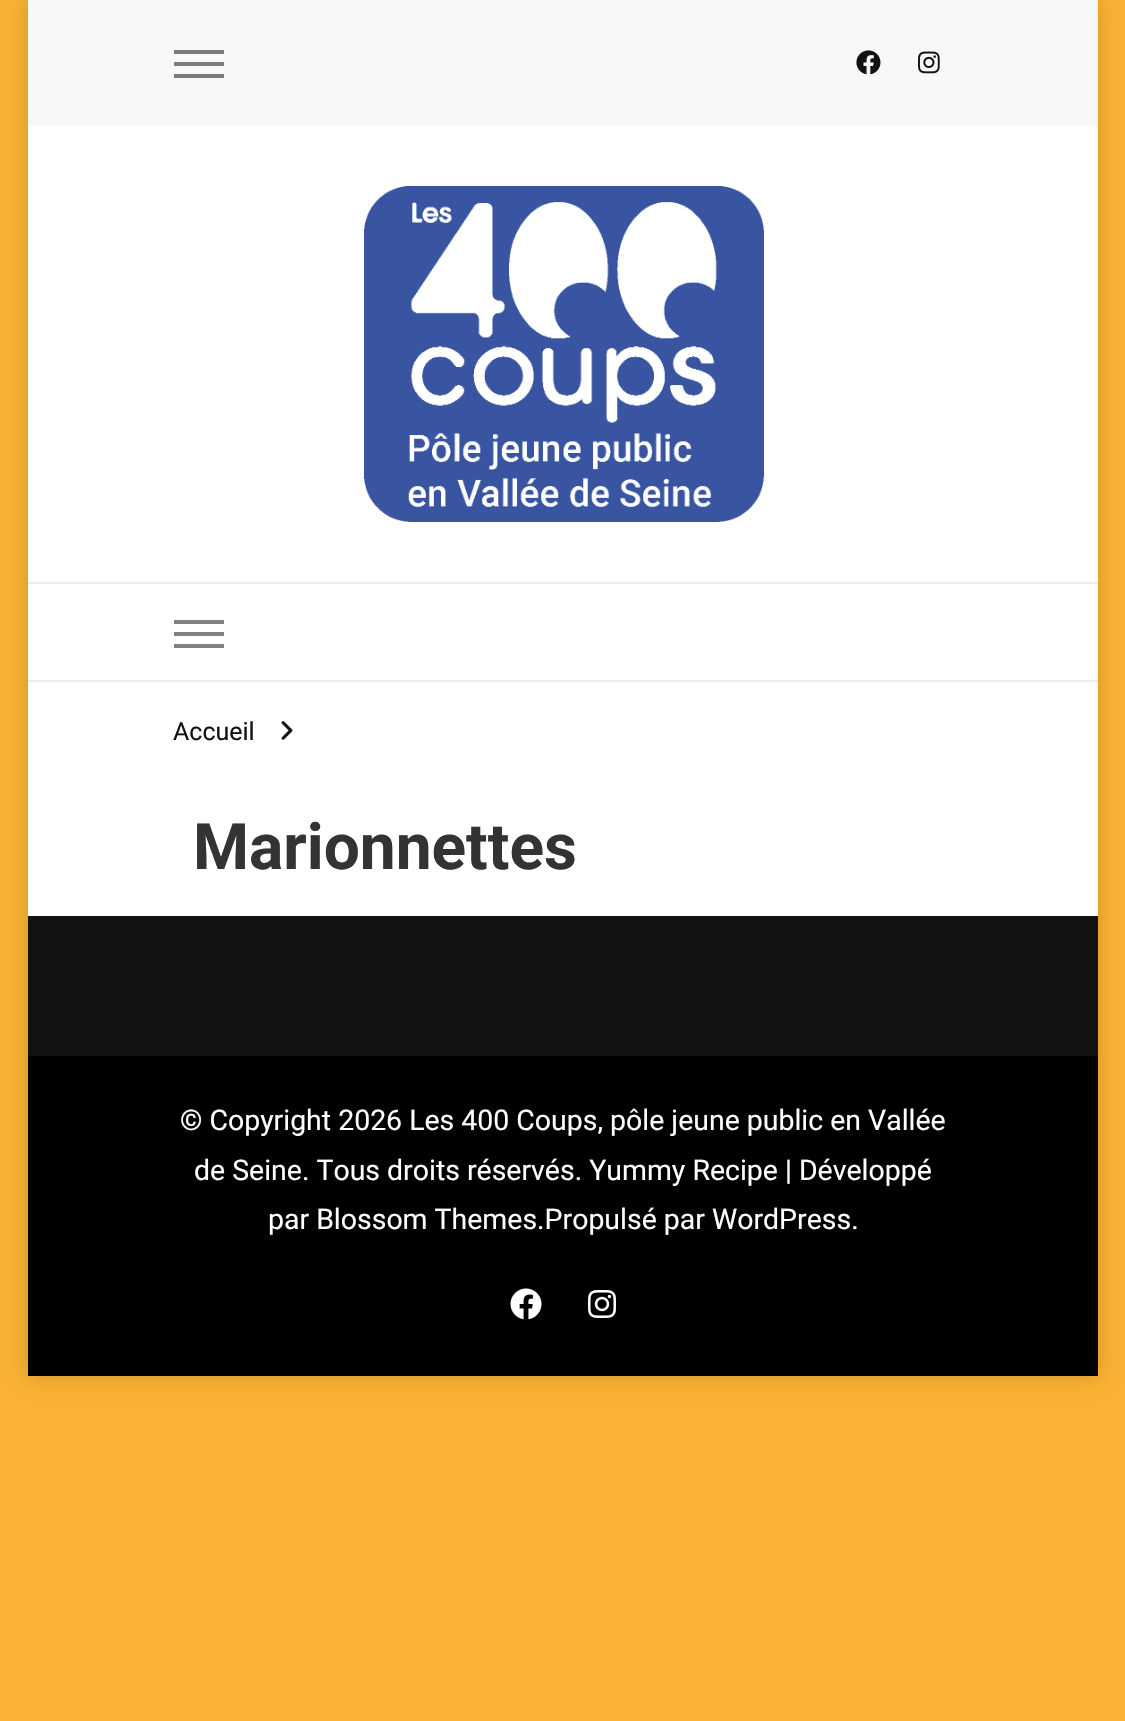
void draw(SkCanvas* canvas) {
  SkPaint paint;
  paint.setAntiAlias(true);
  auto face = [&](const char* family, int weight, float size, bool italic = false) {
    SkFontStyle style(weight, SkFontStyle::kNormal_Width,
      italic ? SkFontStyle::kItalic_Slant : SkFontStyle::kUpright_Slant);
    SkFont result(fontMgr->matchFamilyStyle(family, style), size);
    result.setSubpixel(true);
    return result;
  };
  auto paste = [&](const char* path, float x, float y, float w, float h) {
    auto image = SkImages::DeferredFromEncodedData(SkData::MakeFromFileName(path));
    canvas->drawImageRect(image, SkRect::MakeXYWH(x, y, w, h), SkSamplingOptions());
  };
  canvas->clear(0xfff9b233);
  paint.setColor(0x29000000);
  paint.setMaskFilter(SkMaskFilter::MakeBlur(kNormal_SkBlurStyle, 10));
  canvas->drawRect(SkRect::MakeXYWH(28, 0, 1070, 1376), paint);
  paint.setMaskFilter(nullptr);
  {
    const struct { float x, y, w, h; SkColor color; } items[] = {
      {28, 126, 1070, 790, 0xffffffff},
      {28, 0, 1070, 126, 0xfff8f8f8},
      {174, 50, 50, 4, 0xff7c7c7c},
      {174, 62, 50, 4, 0xff7c7c7c},
      {174, 74, 50, 4, 0xff7c7c7c},
    };
    for (auto [x, y, w, h, color] : items) {
      paint.setColor(color);
      canvas->drawRect(SkRect::MakeXYWH(x, y, w, h), paint);
    }
  }
  paste("img/1.png", 856, 50, 25, 25);
  paste("img/2.png", 918, 51, 22, 23);
  paste("img/3.png", 364, 186, 400, 336);
  {
    const struct { float x, y, w, h; SkColor color; } items[] = {
      {28, 582, 1070, 2, 0xffededed},
      {28, 680, 1070, 2, 0xffededed},
      {174, 620, 50, 4, 0xff808080},
      {174, 632, 50, 4, 0xff808080},
      {174, 644, 50, 4, 0xff808080},
    };
    for (auto [x, y, w, h, color] : items) {
      paint.setColor(color);
      canvas->drawRect(SkRect::MakeXYWH(x, y, w, h), paint);
    }
  }
  paste("img/4.png", 281, 721, 12, 19);
  paint.setColor(0xff121212);
  canvas->drawRect(SkRect::MakeXYWH(28, 916, 1070, 140), paint);
  paint.setColor(0xff000000);
  canvas->drawRect(SkRect::MakeXYWH(28, 1056, 1070, 320), paint);
  paste("img/5.png", 510, 1288, 32, 32);
  paste("img/6.png", 588, 1290, 28, 28);
  auto f0 = face("Roboto", 400, 25);
  paint.setColor(0xff121212);
  canvas->drawString("Accueil", 173, 740, f0, paint);
  auto f1 = face("Roboto", 700, 64);
  paint.setColor(0xff333333);
  canvas->drawString("Marionnettes", 193, 869, f1, paint);
  auto f2 = face("Roboto", 400, 28.45f);
  paint.setColor(0xffffffff);
  {
    const struct { const char* s; float x, y; } items[] = {
      {"© Copyright 2026 Les 400 Coups, pôle jeune public en Vallée", 180, 1130},
      {"de Seine. Tous droits réservés. Yummy Recipe | Développé", 194, 1180},
      {"par Blossom Themes.Propulsé par WordPress.", 268, 1229},
    };
    for (auto [s, x, y] : items) {
      canvas->drawString(s, x, y, f2, paint);
    }
  }
}
